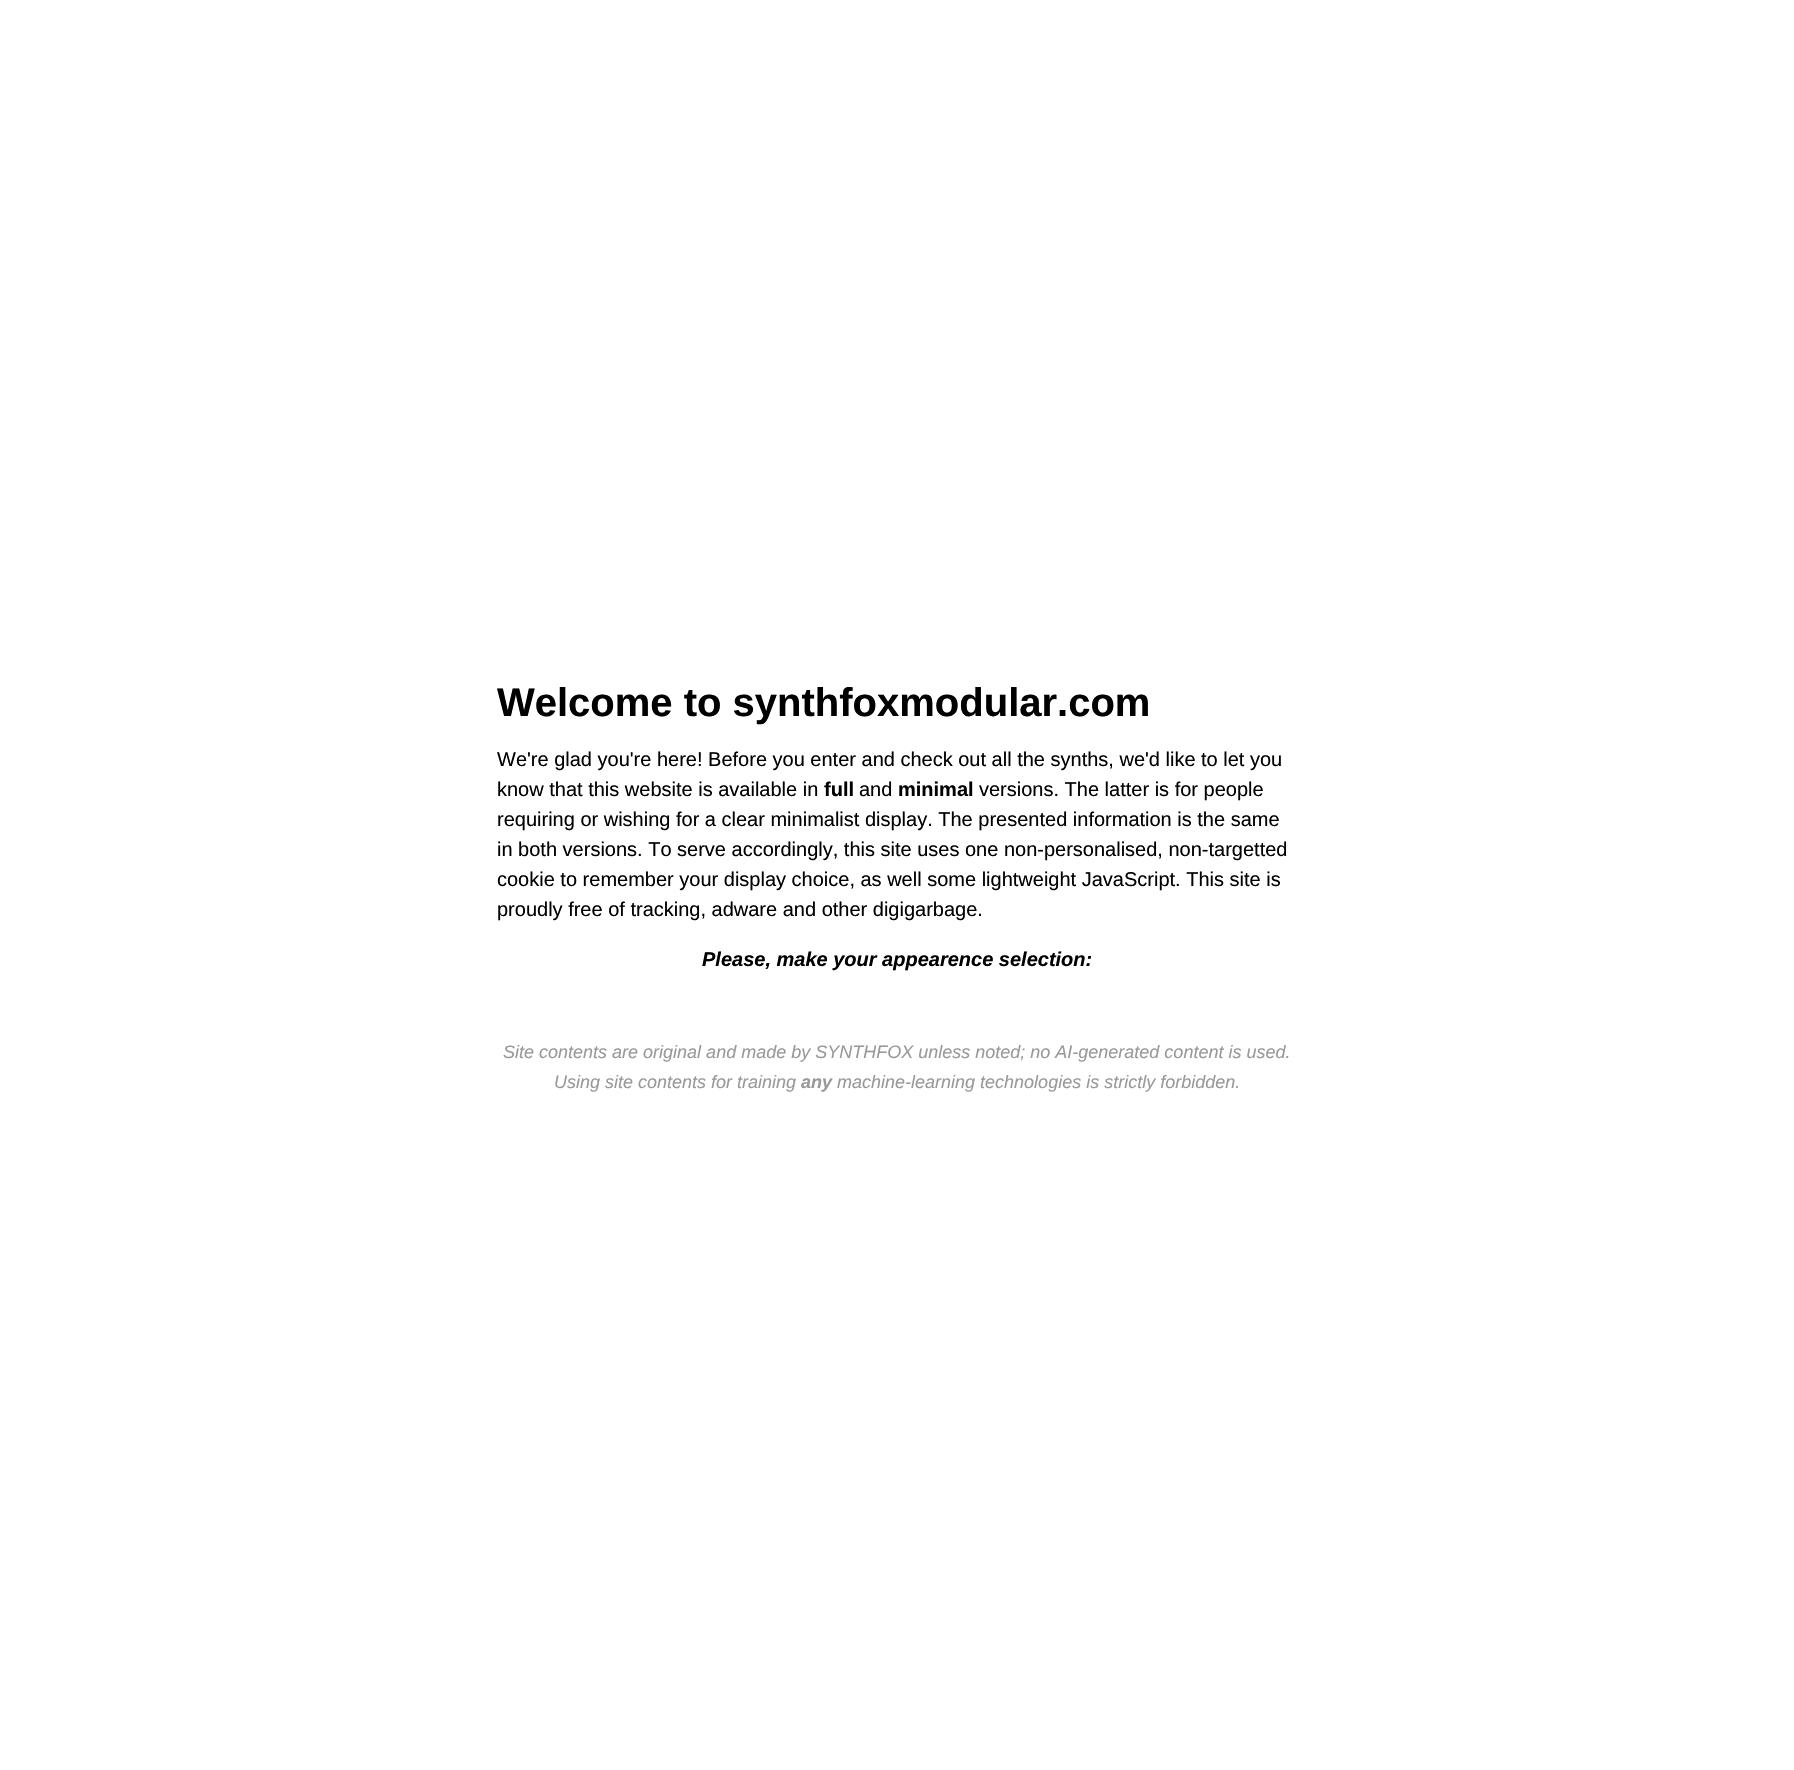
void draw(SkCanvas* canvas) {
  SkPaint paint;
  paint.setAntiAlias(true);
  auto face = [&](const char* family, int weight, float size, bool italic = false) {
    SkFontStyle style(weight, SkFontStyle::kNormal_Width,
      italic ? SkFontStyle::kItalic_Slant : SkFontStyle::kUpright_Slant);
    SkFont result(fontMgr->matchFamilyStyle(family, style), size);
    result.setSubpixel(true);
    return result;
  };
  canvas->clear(0xffffffff);
  auto f0 = face("Liberation Sans", 700, 40);
  paint.setColor(0xff000000);
  canvas->drawString("Welcome to synthfoxmodular.com", 497, 716, f0, paint);
  auto f1 = face("Liberation Sans", 400, 20);
  canvas->drawString("We're glad you're here! Before you enter and check out all the synths, we'd like to let you", 497, 766, f1, paint);
  canvas->drawString("know that this website is available in", 497, 796, f1, paint);
  auto f2 = face("Liberation Sans", 700, 20);
  canvas->drawString("full", 824, 796, f2, paint);
  canvas->drawString("and", 859, 796, f1, paint);
  canvas->drawString("minimal", 898, 796, f2, paint);
  {
    const struct { const char* s; float x, y; } items[] = {
      {"versions. The latter is for people", 979, 796},
      {"requiring or wishing for a clear minimalist display. The presented information is the same", 497, 826},
      {"in both versions. To serve accordingly, this site uses one non-personalised, non-targetted", 497, 856},
      {"cookie to remember your display choice, as well some lightweight JavaScript. This site is", 497, 886},
      {"proudly free of tracking, adware and other digigarbage.", 497, 916},
    };
    for (auto [s, x, y] : items) {
      canvas->drawString(s, x, y, f1, paint);
    }
  }
  auto f3 = face("Liberation Sans", 700, 20, true);
  canvas->drawString("Please, make your appearence selection:", 702, 966, f3, paint);
  auto f4 = face("Liberation Sans", 400, 18, true);
  paint.setColor(0xff999999);
  canvas->drawString("Site contents are original and made by SYNTHFOX unless noted; no AI-generated content is used.", 503, 1058, f4, paint);
  canvas->drawString("Using site contents for training", 554, 1088, f4, paint);
  auto f5 = face("Liberation Sans", 700, 18, true);
  canvas->drawString("any", 801, 1088, f5, paint);
  canvas->drawString("machine-learning technologies is strictly forbidden.", 837, 1088, f4, paint);
}
